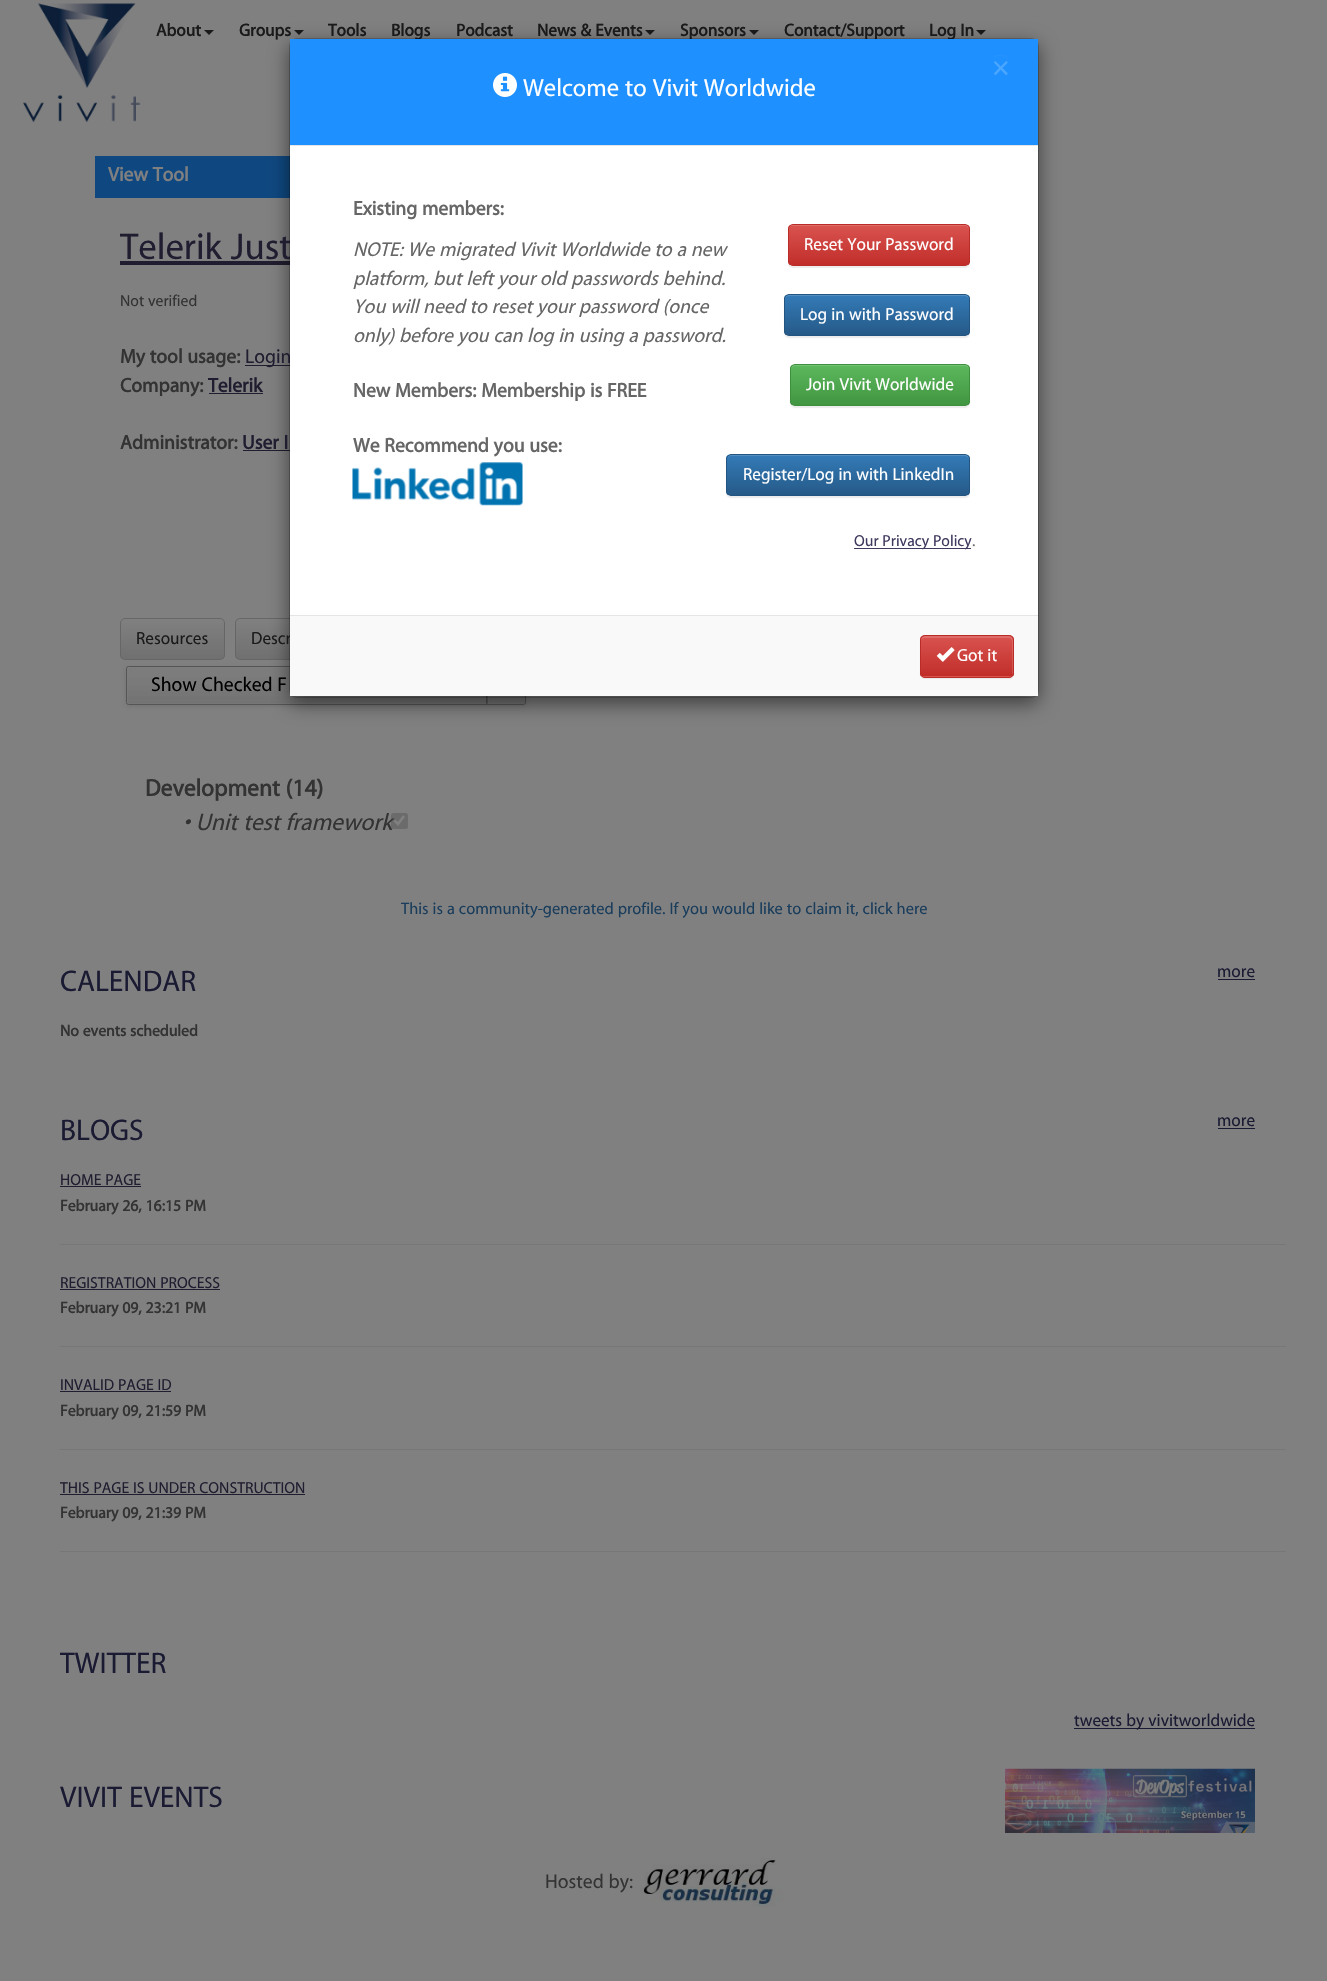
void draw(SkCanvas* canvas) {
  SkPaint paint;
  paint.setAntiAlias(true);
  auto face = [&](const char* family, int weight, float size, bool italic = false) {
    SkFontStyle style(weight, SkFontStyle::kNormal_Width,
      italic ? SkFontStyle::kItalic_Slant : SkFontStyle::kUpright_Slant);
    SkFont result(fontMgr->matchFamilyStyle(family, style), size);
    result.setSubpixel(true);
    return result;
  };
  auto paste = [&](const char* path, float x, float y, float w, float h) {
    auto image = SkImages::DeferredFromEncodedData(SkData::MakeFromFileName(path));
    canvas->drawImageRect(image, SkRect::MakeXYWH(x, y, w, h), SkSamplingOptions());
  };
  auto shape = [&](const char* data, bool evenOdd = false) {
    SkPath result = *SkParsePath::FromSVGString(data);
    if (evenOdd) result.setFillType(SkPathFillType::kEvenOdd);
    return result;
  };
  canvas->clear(0xff808080);
  paste("img/1.png", 23, 3, 118, 120);
  paint.setColor(0xff1a1a1a);
  canvas->drawPath(shape("M204 30H214L209 35Z"), paint);
  canvas->drawPath(shape("M294 30H304L299 35Z"), paint);
  canvas->drawPath(shape("M645 30H655L650 35Z"), paint);
  canvas->drawPath(shape("M749 30H759L754 35Z"), paint);
  canvas->drawPath(shape("M976 30H986L981 35Z"), paint);
  {
    const struct { float x, y, w, h; SkColor color; } items[] = {
      {95, 156, 195, 42, 0xff0f4880},
      {120, 261, 170, 4, 0xff211d30},
      {245, 365, 45, 1, 0xff211d30},
      {209, 393, 54, 1, 0xff211d30},
      {243, 450, 47, 1, 0xff211d30},
    };
    for (auto [x, y, w, h, color] : items) {
      paint.setColor(color);
      canvas->drawRect(SkRect::MakeXYWH(x, y, w, h), paint);
    }
  }
  canvas->save();
  canvas->clipPath(shape("M240 618H345C348 618 350 620 350 623V655C350 658 348 660 345 660H240C237 660 235 658 235 655V623C235 620 237 618 240 618Z"), true);
  {
    const SkColor colors[] = {0xff808080, 0xff707070};
    const float stops[] = {0, 1};
    const SkPoint ends[] = {{293, 619}, {293, 659}};
    paint.setShader(SkGradientShader::MakeLinear(ends, colors, stops, 2, SkTileMode::kClamp));
    paint.setAlpha(255);
  }
  canvas->drawRect(SkRect::MakeXYWH(235, 619, 55, 40), paint);
  canvas->restore();
  paint.setStroke(true);
  paint.setStrokeWidth(1);
  paint.setShader(nullptr);
  paint.setColor(0xff666666);
  canvas->drawRoundRect(SkRect::MakeXYWH(235.5f, 618.5f, 114, 41), 4.5f, 4.5f, paint);
  paint.setStroke(false);
  paint.setColor(0x1a000000);
  paint.setMaskFilter(SkMaskFilter::MakeBlur(kNormal_SkBlurStyle, 2));
  canvas->drawRoundRect(SkRect::MakeXYWH(126, 668, 400, 38), 2.5f, 2.5f, paint);
  paint.setMaskFilter(nullptr);
  paint.setColor(0xff7d7d7d);
  canvas->drawRoundRect(SkRect::MakeXYWH(126, 666, 400, 39), 2.5f, 2.5f, paint);
  paste("img/5.png", 127, 667, 398, 37);
  paint.setStroke(true);
  paint.setColor(0xff555555);
  canvas->drawRoundRect(SkRect::MakeXYWH(126.5f, 666.5f, 399, 38), 2, 2, paint);
  paint.setStroke(false);
  paint.setColor(0x80000000);
  paint.setMaskFilter(SkMaskFilter::MakeBlur(kNormal_SkBlurStyle, 9.5f));
  canvas->drawRoundRect(SkRect::MakeXYWH(289, 44, 750, 660), 8, 8, paint);
  paint.setMaskFilter(nullptr);
  canvas->save();
  canvas->clipPath(shape("M125 618H220C223 618 225 620 225 623V655C225 658 223 660 220 660H125C122 660 120 658 120 655V623C120 620 122 618 125 618Z"), true);
  {
    const SkColor colors[] = {0xff808080, 0xff707070};
    const float stops[] = {0, 1};
    const SkPoint ends[] = {{173, 619}, {173, 659}};
    paint.setShader(SkGradientShader::MakeLinear(ends, colors, stops, 2, SkTileMode::kClamp));
    paint.setAlpha(255);
  }
  canvas->drawRect(SkRect::MakeXYWH(120, 619, 105, 40), paint);
  canvas->restore();
  paint.setStroke(true);
  paint.setShader(nullptr);
  paint.setColor(0xff666666);
  canvas->drawRoundRect(SkRect::MakeXYWH(120.5f, 618.5f, 104, 41), 4.5f, 4.5f, paint);
  paint.setStroke(false);
  {
    const struct { float x, y, w, h; SkColor color; } items[] = {
      {1218, 979, 37, 1, 0xff1a1a33},
      {1218, 1128, 37, 1, 0xff1a1a33},
      {60, 1186, 81, 1, 0xff211d30},
      {60, 1244, 1226, 1, 0xff777777},
      {60, 1289, 160, 1, 0xff211d30},
      {60, 1346, 1226, 1, 0xff777777},
      {60, 1391, 111, 1, 0xff211d30},
      {60, 1449, 1226, 1, 0xff777777},
      {60, 1494, 245, 1, 0xff211d30},
      {60, 1551, 1226, 1, 0xff777777},
      {1074, 1728, 181, 1, 0xff1a1a33},
    };
    for (auto [x, y, w, h, color] : items) {
      paint.setColor(color);
      canvas->drawRect(SkRect::MakeXYWH(x, y, w, h), paint);
    }
  }
  paste("img/6.png", 1005, 1768, 250, 65);
  paste("img/7.png", 640, 1857, 143, 51);
  auto f0 = face("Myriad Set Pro", 700, 17.5f);
  paint.setColor(0xff1a1a1a);
  {
    const struct { const char* s; float x, y; } items[] = {
      {"About", 156, 36},
      {"Groups", 239, 36},
      {"Tools", 328, 36},
      {"Blogs", 391, 36},
      {"Podcast", 456, 36},
      {"News & Events", 537, 36},
      {"Sponsors", 680, 36},
      {"Contact/Support", 784, 36},
      {"Log In", 929, 36},
    };
    for (auto [s, x, y] : items) {
      canvas->drawString(s, x, y, f0, paint);
    }
  }
  auto f1 = face("Myriad Set Pro", 700, 20);
  paint.setColor(0xff808080);
  canvas->drawString("View Tool", 108, 181, f1, paint);
  auto f2 = face("Myriad Set Pro", 500, 37.5f);
  paint.setColor(0xff211d30);
  canvas->drawString("Telerik Just", 120, 259, f2, paint);
  auto f3 = face("Myriad Set Pro", 500, 16);
  paint.setColor(0xff333333);
  canvas->drawString("Not verified", 120, 306, f3, paint);
  canvas->drawString("My tool usage:", 120, 363, f1, paint);
  auto f4 = face("Myriad Set Pro", 500, 20);
  paint.setColor(0xff211d30);
  canvas->drawString("Login", 245, 363, f4, paint);
  paint.setColor(0xffffffff);
  canvas->drawRect(SkRect::MakeXYWH(290, 146, 748, 469), paint);
  paint.setColor(0xff333333);
  canvas->drawString("Company:", 120, 392, f1, paint);
  paint.setColor(0xff211d30);
  canvas->drawString("Telerik", 208, 392, f1, paint);
  paint.setColor(0xff333333);
  canvas->drawString("Administrator:", 120, 449, f1, paint);
  paint.setColor(0xff211d30);
  canvas->drawString("User I", 242, 449, f1, paint);
  auto f5 = face("Myriad Set Pro", 500, 17.5f);
  paint.setColor(0xff1a1a1a);
  canvas->drawString("Resources", 136, 644, f5, paint);
  canvas->drawString("Descr", 251, 644, f5, paint);
  paint.setStroke(true);
  paint.setColor(0x33000000);
  canvas->drawRoundRect(SkRect::MakeXYWH(289.5f, 38.5f, 749, 659), 7.5f, 7.5f, paint);
  paint.setStroke(false);
  paint.setColor(0xfff9f9f9);
  canvas->drawRect(SkRect::MakeXYWH(290, 616, 748, 80), paint);
  paint.setColor(0x12000000);
  paint.setMaskFilter(SkMaskFilter::MakeBlur(kNormal_SkBlurStyle, 0.5f));
  canvas->drawRoundRect(SkRect::MakeXYWH(920, 636, 94, 43), 5, 5, paint);
  paint.setMaskFilter(nullptr);
  paint.setColor(0xffd9534f);
  canvas->drawRoundRect(SkRect::MakeXYWH(920, 635, 94, 43), 5, 5, paint);
  canvas->save();
  canvas->clipPath(shape("M925 635H1009C1012 635 1014 637 1014 640V673C1014 676 1012 678 1009 678H925C922 678 920 676 920 673V640C920 637 922 635 925 635Z"), true);
  {
    const SkColor colors[] = {0xffd9534f, 0xffc12e2a};
    const float stops[] = {0, 1};
    const SkPoint ends[] = {{967, 636}, {967, 676}};
    paint.setShader(SkGradientShader::MakeLinear(ends, colors, stops, 2, SkTileMode::kClamp));
    paint.setAlpha(255);
  }
  canvas->drawRect(SkRect::MakeXYWH(920, 636, 94, 40), paint);
  canvas->restore();
  paint.setShader(nullptr);
  paint.setColor(0x26ffffff);
  canvas->drawPath(shape("M925 638H1009C1013 638 1012 644 1012 646V675C1013 674 1013 673 1013 672V640C1013 638 1011 636 1009 636H925C923 636 921 638 921 640V641C921 639 923 638 925 638Z"), paint);
  paint.setStroke(true);
  paint.setColor(0xffb92c28);
  canvas->drawRoundRect(SkRect::MakeXYWH(920.5f, 635.5f, 93, 42), 4.5f, 4.5f, paint);
  paste("img/4.png", 936, 647, 19, 15);
  paint.setStroke(false);
  paint.setColor(0xff666666);
  canvas->drawString(".", 972, 546, f3, paint);
  paint.setColor(0xff41395f);
  canvas->drawRect(SkRect::MakeXYWH(854, 548, 117, 1), paint);
  canvas->drawString("Our Privacy Policy", 854, 546, f3, paint);
  paste("img/3.png", 352, 462, 171, 44);
  paint.setColor(0xff666666);
  canvas->drawString("We Recommend you use:", 353, 452, f1, paint);
  canvas->drawString("New Members: Membership is FREE", 353, 397, f1, paint);
  auto f6 = face("Myriad Set Pro", 500, 20, true);
  {
    const struct { const char* s; float x, y; } items[] = {
      {"only) before you can log in using a password.", 353, 342},
      {"You will need to reset your password (once", 353, 313},
      {"platform, but left your old passwords behind.", 353, 285},
      {"NOTE: We migrated Vivit Worldwide to a new", 353, 256},
    };
    for (auto [s, x, y] : items) {
      canvas->drawString(s, x, y, f6, paint);
    }
  }
  canvas->drawString("Existing members:", 353, 215, f1, paint);
  paint.setColor(0x12000000);
  paint.setMaskFilter(SkMaskFilter::MakeBlur(kNormal_SkBlurStyle, 0.5f));
  canvas->drawRoundRect(SkRect::MakeXYWH(726, 455, 244, 43), 5, 5, paint);
  paint.setMaskFilter(nullptr);
  canvas->save();
  canvas->clipPath(shape("M731 454H965C968 454 970 456 970 459V491C970 494 968 496 965 496H731C728 496 726 494 726 491V459C726 456 728 454 731 454Z"), true);
  {
    const SkColor colors[] = {0xff337ab7, 0xff265a88};
    const float stops[] = {0, 1};
    const SkPoint ends[] = {{848, 455}, {848, 495}};
    paint.setShader(SkGradientShader::MakeLinear(ends, colors, stops, 2, SkTileMode::kClamp));
    paint.setAlpha(255);
  }
  canvas->drawRect(SkRect::MakeXYWH(726, 455, 244, 40), paint);
  canvas->restore();
  paint.setShader(nullptr);
  paint.setColor(0xff528ec1);
  canvas->drawPath(shape("M731 456H965C967 456 969 458 969 460C969 457 968 455 965 455H732C729 455 728 457 728 460C728 458 729 456 731 456Z"), paint);
  paint.setStroke(true);
  paint.setColor(0xff245580);
  canvas->drawRoundRect(SkRect::MakeXYWH(726.5f, 454.5f, 243, 41), 4.5f, 4.5f, paint);
  paint.setStroke(false);
  paint.setColor(0xffffffff);
  canvas->drawString("Register/Log in with LinkedIn", 743, 480, f5, paint);
  paint.setColor(0x12000000);
  paint.setMaskFilter(SkMaskFilter::MakeBlur(kNormal_SkBlurStyle, 0.5f));
  canvas->drawRoundRect(SkRect::MakeXYWH(790, 365, 180, 43), 5, 5, paint);
  paint.setMaskFilter(nullptr);
  canvas->save();
  canvas->clipPath(shape("M795 364H965C968 364 970 366 970 369V401C970 404 968 406 965 406H795C792 406 790 404 790 401V369C790 366 792 364 795 364Z"), true);
  {
    const SkColor colors[] = {0xff5cb85c, 0xff419641};
    const float stops[] = {0, 1};
    const SkPoint ends[] = {{880, 365}, {880, 405}};
    paint.setShader(SkGradientShader::MakeLinear(ends, colors, stops, 2, SkTileMode::kClamp));
    paint.setAlpha(255);
  }
  canvas->drawRect(SkRect::MakeXYWH(790, 365, 180, 40), paint);
  canvas->restore();
  paint.setShader(nullptr);
  paint.setColor(0xff74c374);
  canvas->drawPath(shape("M795 366H965C967 366 969 368 969 370V369C969 367 967 365 965 365H795C793 365 791 367 791 369V370C791 368 793 366 795 366Z"), paint);
  paint.setStroke(true);
  paint.setColor(0xff3e8f3e);
  canvas->drawRoundRect(SkRect::MakeXYWH(790.5f, 364.5f, 179, 41), 4.5f, 4.5f, paint);
  paint.setStroke(false);
  paint.setColor(0xffffffff);
  canvas->drawString("Join Vivit Worldwide", 806, 390, f5, paint);
  paint.setColor(0x12000000);
  paint.setMaskFilter(SkMaskFilter::MakeBlur(kNormal_SkBlurStyle, 0.5f));
  canvas->drawRoundRect(SkRect::MakeXYWH(784, 295, 186, 43), 5, 5, paint);
  paint.setMaskFilter(nullptr);
  canvas->save();
  canvas->clipPath(shape("M789 294H965C968 294 970 296 970 299V331C970 334 968 336 965 336H789C786 336 784 334 784 331V299C784 296 786 294 789 294Z"), true);
  {
    const SkColor colors[] = {0xff337ab7, 0xff265a88};
    const float stops[] = {0, 1};
    const SkPoint ends[] = {{877, 295}, {877, 335}};
    paint.setShader(SkGradientShader::MakeLinear(ends, colors, stops, 2, SkTileMode::kClamp));
    paint.setAlpha(255);
  }
  canvas->drawRect(SkRect::MakeXYWH(784, 295, 186, 40), paint);
  canvas->restore();
  paint.setShader(nullptr);
  paint.setColor(0xff528ec1);
  canvas->drawPath(shape("M789 296H965C967 296 969 298 969 300C969 297 968 295 965 295H788C786 296 785 298 785 300C785 298 787 296 789 296Z"), paint);
  paint.setStroke(true);
  paint.setColor(0xff245580);
  canvas->drawRoundRect(SkRect::MakeXYWH(784.5f, 294.5f, 185, 41), 4.5f, 4.5f, paint);
  paint.setStroke(false);
  paint.setColor(0xffffffff);
  canvas->drawString("Log in with Password", 800, 320, f5, paint);
  paint.setColor(0x12000000);
  paint.setMaskFilter(SkMaskFilter::MakeBlur(kNormal_SkBlurStyle, 0.5f));
  canvas->drawRoundRect(SkRect::MakeXYWH(788, 225, 182, 43), 5, 5, paint);
  paint.setMaskFilter(nullptr);
  canvas->save();
  canvas->clipPath(shape("M793 224H965C968 224 970 226 970 229V261C970 264 968 266 965 266H793C790 266 788 264 788 261V229C788 226 790 224 793 224Z"), true);
  {
    const SkColor colors[] = {0xffd9534f, 0xffc12e2a};
    const float stops[] = {0, 1};
    const SkPoint ends[] = {{879, 225}, {879, 265}};
    paint.setShader(SkGradientShader::MakeLinear(ends, colors, stops, 2, SkTileMode::kClamp));
    paint.setAlpha(255);
  }
  canvas->drawRect(SkRect::MakeXYWH(788, 225, 182, 40), paint);
  canvas->restore();
  paint.setShader(nullptr);
  paint.setColor(0xffdf6d69);
  canvas->drawPath(shape("M792 226H965C967 226 969 228 969 230V229C969 227 967 225 965 225H793C791 225 789 227 789 229V230C789 228 790 226 792 226Z"), paint);
  paint.setStroke(true);
  paint.setColor(0xffb92c28);
  canvas->drawRoundRect(SkRect::MakeXYWH(788.5f, 224.5f, 181, 41), 4.5f, 4.5f, paint);
  paint.setStroke(false);
  paint.setColor(0xffffffff);
  canvas->drawString("Reset Your Password", 804, 250, f5, paint);
  paint.setColor(0xff1e90ff);
  canvas->drawRect(SkRect::MakeXYWH(290, 39, 748, 106), paint);
  paste("img/2.png", 493, 73, 24, 24);
  paint.setColor(0xff2593ff);
  canvas->drawPath(shape("M998 56C1006.5 56 1008 57 1008 62.5V60C1008 57 1006 55 1003 55H998C995.5 55 993.5 56.5 993 59C994 57 995.5 56 998 56ZM1008 69L1007.5 77C1008.5 74.5 1008 71.5 1008 69Z", true), paint);
  auto f7 = face("Myriad Set Pro", 700, 25);
  paint.setColor(0xff4ba6ff);
  canvas->drawString("×", 993, 75, f7, paint);
  auto f8 = face("Myriad Set Pro", 500, 25);
  paint.setColor(0xffffffff);
  canvas->drawString("Welcome to Vivit Worldwide", 523, 96, f8, paint);
  canvas->drawString("Got it", 957, 661, f5, paint);
  paint.setColor(0xffe5e5e5);
  canvas->drawRect(SkRect::MakeXYWH(290, 615, 748, 1), paint);
  canvas->drawRect(SkRect::MakeXYWH(290, 145, 748, 1), paint);
  paint.setColor(0xff000000);
  canvas->drawString("Show Checked F", 151, 691, f4, paint);
  auto f9 = face("Myriad Set Pro", 700, 24);
  paint.setColor(0xff333333);
  canvas->drawString("Development (14)", 145, 796, f9, paint);
  auto f10 = face("Myriad Set Pro", 500, 24, true);
  canvas->drawString("• Unit test framework", 183, 830, f10, paint);
  paint.setColor(0x4d3b3b3b);
  canvas->drawRoundRect(SkRect::MakeXYWH(391, 813, 17, 16), 2.5f, 2.5f, paint);
  paint.setStroke(true);
  paint.setStrokeWidth(2.6f);
  paint.setColor(0xff808080);
  canvas->drawPath(shape("M394.5 820.5L398 824L404 816"), paint);
  auto f11 = face("Myriad Set Pro", 500, 16.7f);
  paint.setStroke(false);
  paint.setColor(0xff1a3d5c);
  canvas->drawString("This is a community-generated profile. If you would like to claim it, click here", 401, 914, f11, paint);
  auto f12 = face("Myriad Set Pro", 500, 30);
  paint.setColor(0xff1a1a33);
  canvas->drawString("CALENDAR", 60, 991, f12, paint);
  canvas->drawString("more", 1217, 977, f5, paint);
  auto f13 = face("Myriad Set Pro", 700, 16);
  paint.setColor(0xff333333);
  canvas->drawString("No events scheduled", 60, 1036, f13, paint);
  paint.setColor(0xff1a1a33);
  canvas->drawString("BLOGS", 60, 1140, f12, paint);
  canvas->drawString("more", 1217, 1126, f5, paint);
  paint.setColor(0xff211d30);
  canvas->drawString("HOME PAGE", 60, 1185, f3, paint);
  paint.setColor(0xff333333);
  canvas->drawString("February 26, 16:15 PM", 60, 1211, f13, paint);
  paint.setColor(0xff211d30);
  canvas->drawString("REGISTRATION PROCESS", 60, 1288, f3, paint);
  paint.setColor(0xff333333);
  canvas->drawString("February 09, 23:21 PM", 60, 1313, f13, paint);
  paint.setColor(0xff211d30);
  canvas->drawString("INVALID PAGE ID", 60, 1390, f3, paint);
  paint.setColor(0xff333333);
  canvas->drawString("February 09, 21:59 PM", 60, 1416, f13, paint);
  paint.setColor(0xff211d30);
  canvas->drawString("THIS PAGE IS UNDER CONSTRUCTION", 60, 1493, f3, paint);
  paint.setColor(0xff333333);
  canvas->drawString("February 09, 21:39 PM", 60, 1518, f13, paint);
  paint.setColor(0xff1a1a33);
  canvas->drawString("TWITTER", 60, 1673, f12, paint);
  canvas->drawString("tweets by vivitworldwide", 1074, 1726, f5, paint);
  canvas->drawString("VIVIT EVENTS", 60, 1807, f12, paint);
  paint.setColor(0xff333333);
  canvas->drawString("Hosted by:", 545, 1888, f4, paint);
}
